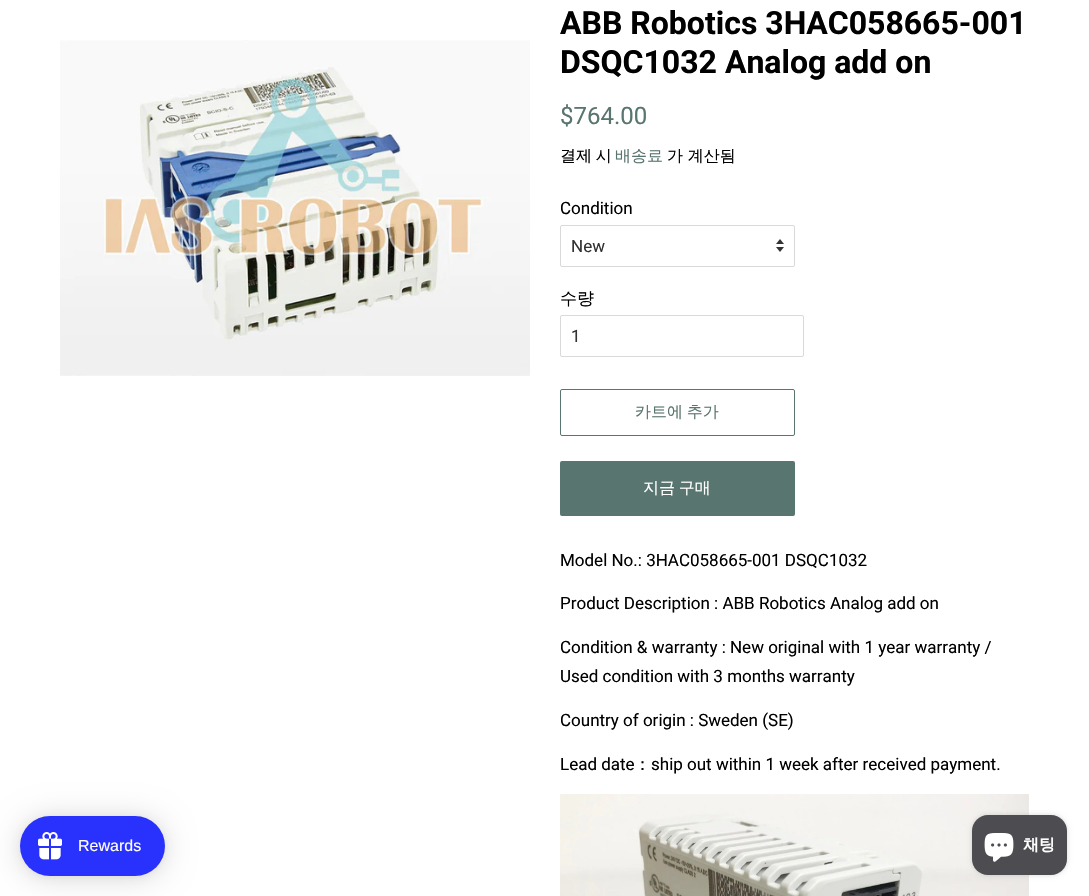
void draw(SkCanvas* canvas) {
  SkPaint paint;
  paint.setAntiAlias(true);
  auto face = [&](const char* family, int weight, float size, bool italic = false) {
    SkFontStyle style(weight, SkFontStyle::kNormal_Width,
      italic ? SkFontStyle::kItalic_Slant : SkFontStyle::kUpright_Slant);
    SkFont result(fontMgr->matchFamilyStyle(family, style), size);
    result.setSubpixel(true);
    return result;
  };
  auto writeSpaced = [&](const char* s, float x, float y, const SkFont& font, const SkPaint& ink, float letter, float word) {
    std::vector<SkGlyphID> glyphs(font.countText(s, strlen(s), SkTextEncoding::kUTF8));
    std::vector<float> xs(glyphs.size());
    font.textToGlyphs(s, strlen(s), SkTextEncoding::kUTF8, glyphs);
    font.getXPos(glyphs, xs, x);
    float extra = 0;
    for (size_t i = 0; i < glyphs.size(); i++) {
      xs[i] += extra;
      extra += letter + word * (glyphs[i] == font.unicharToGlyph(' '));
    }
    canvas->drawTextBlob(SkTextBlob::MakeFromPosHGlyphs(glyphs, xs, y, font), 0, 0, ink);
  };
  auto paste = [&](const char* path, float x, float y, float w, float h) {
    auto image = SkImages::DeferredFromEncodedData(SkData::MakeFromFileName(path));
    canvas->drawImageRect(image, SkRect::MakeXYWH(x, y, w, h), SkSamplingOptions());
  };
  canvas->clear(0xffffffff);
  paste("img/1.png", 60, 40, 470, 336);
  paste("img/2.png", 776, 239, 8, 13);
  paint.setStroke(true);
  paint.setStrokeWidth(1);
  paint.setColor(0xffd9d9d9);
  canvas->drawRoundRect(SkRect::MakeXYWH(560.5f, 225.5f, 234, 41), 1.5f, 1.5f, paint);
  canvas->drawRoundRect(SkRect::MakeXYWH(560.5f, 315.5f, 243, 41), 1.5f, 1.5f, paint);
  paint.setColor(0xff59756f);
  canvas->drawRoundRect(SkRect::MakeXYWH(560.5f, 389.5f, 234, 46), 1.5f, 1.5f, paint);
  paint.setStroke(false);
  canvas->drawRoundRect(SkRect::MakeXYWH(560, 461, 235, 55), 2, 2, paint);
  paste("img/3.png", 560, 794, 469, 102);
  paint.setColor(0x26000000);
  paint.setMaskFilter(SkMaskFilter::MakeBlur(kNormal_SkBlurStyle, 15));
  canvas->drawRoundRect(SkRect::MakeXYWH(20, 818, 145, 60), 30, 30, paint);
  paint.setMaskFilter(nullptr);
  paint.setColor(0x0d000000);
  paint.setMaskFilter(SkMaskFilter::MakeBlur(kNormal_SkBlurStyle, 3));
  canvas->drawRoundRect(SkRect::MakeXYWH(20, 817, 145, 60), 30, 30, paint);
  paint.setMaskFilter(nullptr);
  paint.setColor(0xff2932fc);
  canvas->drawRoundRect(SkRect::MakeXYWH(20, 816, 145, 60), 30, 30, paint);
  paste("img/4.png", 38, 832, 24, 28);
  paint.setColor(0x26000000);
  paint.setMaskFilter(SkMaskFilter::MakeBlur(kNormal_SkBlurStyle, 2.5f));
  canvas->drawRoundRect(SkRect::MakeXYWH(972, 815, 95, 60), 16, 16, paint);
  paint.setMaskFilter(nullptr);
  paint.setColor(0xff4d4d51);
  canvas->drawRoundRect(SkRect::MakeXYWH(972, 815, 95, 60), 16, 16, paint);
  paste("img/5.png", 984, 833, 30, 29);
  auto f0 = face("Roboto", 700, 32);
  paint.setColor(0xff000000);
  canvas->drawString("ABB Robotics 3HAC058665-001", 560, 34, f0, paint);
  canvas->drawString("DSQC1032 Analog add on", 560, 73, f0, paint);
  auto f1 = face("Roboto", 400, 24);
  paint.setColor(0xff59756f);
  canvas->drawString("$764.00", 560, 124, f1, paint);
  auto f2 = face("WenQuanYi Zen Hei", 500, 16);
  paint.setColor(0xff000000);
  writeSpaced("결제 시", 560, 161, f2, paint, 0, -1);
  paint.setColor(0xff59756f);
  canvas->drawString("배송료", 615, 161, f2, paint);
  paint.setColor(0xff000000);
  canvas->drawString("가 계산됨", 667, 161, f2, paint);
  auto f3 = face("Roboto", 400, 17);
  canvas->drawString("Condition", 560, 214, f3, paint);
  paint.setColor(0xff333333);
  canvas->drawString("New", 571, 252, f3, paint);
  auto f4 = face("WenQuanYi Zen Hei", 500, 17);
  paint.setColor(0xff000000);
  canvas->drawString("수량", 560, 304, f4, paint);
  paint.setColor(0xff333333);
  canvas->drawString("1", 571, 342, f3, paint);
  paint.setColor(0xff59756f);
  writeSpaced("카트에 추가", 635, 417, f2, paint, 0, -1);
  paint.setColor(0xffffffff);
  writeSpaced("지금 구매", 643, 493, f2, paint, 0, -1);
  paint.setColor(0xff000000);
  {
    const struct { const char* s; float x, y; } items[] = {
      {"Model No.: 3HAC058665-001 DSQC1032", 560, 566},
      {"Product Description : ABB Robotics Analog add on", 560, 609},
      {"Condition & warranty : New original with 1 year warranty /", 560, 653},
      {"Used condition with 3 months warranty", 560, 682},
      {"Country of origin : Sweden (SE)", 560, 726},
      {"Lead date", 560, 770},
    };
    for (auto [s, x, y] : items) {
      canvas->drawString(s, x, y, f3, paint);
    }
  }
  canvas->drawString("：", 634, 770, f4, paint);
  canvas->drawString("ship out within 1 week after received payment.", 651, 770, f3, paint);
  auto f5 = face("Liberation Sans", 400, 16);
  paint.setColor(0xffffffff);
  canvas->drawString("Rewards", 78, 851, f5, paint);
  auto f6 = face("WenQuanYi Zen Hei", 700, 16);
  canvas->drawString("채팅", 1023, 850, f6, paint);
}
